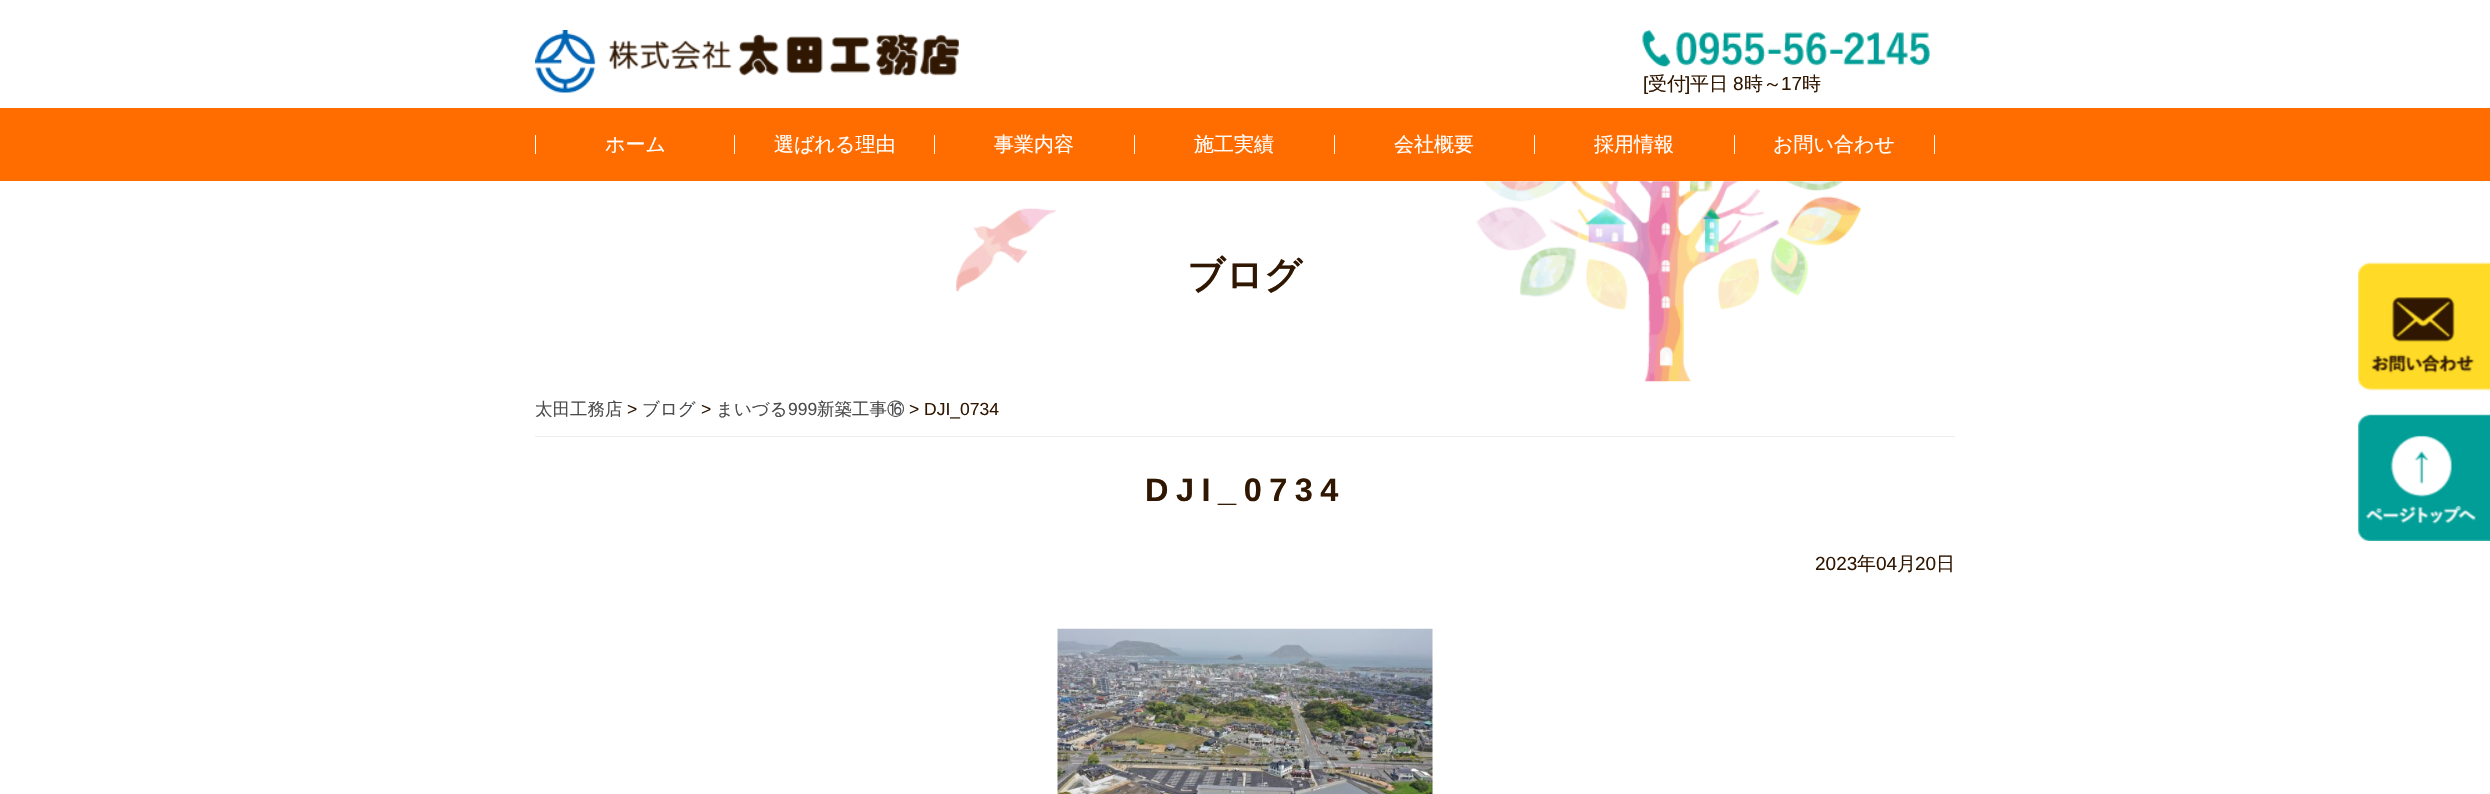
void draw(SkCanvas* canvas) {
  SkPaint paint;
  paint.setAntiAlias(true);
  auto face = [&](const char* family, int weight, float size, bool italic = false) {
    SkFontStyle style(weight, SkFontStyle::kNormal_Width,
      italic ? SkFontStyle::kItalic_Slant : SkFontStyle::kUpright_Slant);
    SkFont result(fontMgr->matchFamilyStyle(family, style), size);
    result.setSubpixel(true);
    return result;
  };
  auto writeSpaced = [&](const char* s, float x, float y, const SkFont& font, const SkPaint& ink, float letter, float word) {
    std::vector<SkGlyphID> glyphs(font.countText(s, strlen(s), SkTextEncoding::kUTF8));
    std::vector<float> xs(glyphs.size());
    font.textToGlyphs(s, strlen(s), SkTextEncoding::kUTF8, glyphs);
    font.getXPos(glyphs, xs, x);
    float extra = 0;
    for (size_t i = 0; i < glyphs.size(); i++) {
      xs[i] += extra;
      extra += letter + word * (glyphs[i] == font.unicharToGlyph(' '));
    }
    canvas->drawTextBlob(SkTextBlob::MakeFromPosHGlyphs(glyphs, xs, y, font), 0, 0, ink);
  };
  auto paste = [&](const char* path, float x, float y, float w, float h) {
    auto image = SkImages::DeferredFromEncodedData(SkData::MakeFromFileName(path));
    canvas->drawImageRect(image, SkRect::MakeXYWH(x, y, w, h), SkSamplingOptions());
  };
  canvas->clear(0xffffffff);
  paste("img/1.png", 535, 30, 424, 63);
  paste("img/2.png", 1642, 30, 288, 37);
  {
    const struct { float x, y, w, h; SkColor color; } items[] = {
      {0, 108, 2490, 73, 0xffff6d00},
      {734, 135, 1, 19, 0xffffffff},
      {535, 135, 1, 19, 0xffffffff},
      {934, 135, 1, 19, 0xffffffff},
      {1134, 135, 1, 19, 0xffffffff},
      {1334, 135, 1, 19, 0xffffffff},
      {1534, 135, 1, 19, 0xffffffff},
      {1734, 135, 1, 19, 0xffffffff},
      {1934, 135, 1, 19, 0xffffffff},
    };
    for (auto [x, y, w, h, color] : items) {
      paint.setColor(color);
      canvas->drawRect(SkRect::MakeXYWH(x, y, w, h), paint);
    }
  }
  paste("img/3.png", 956, 181, 906, 201);
  paste("img/4.png", 2358, 262, 132, 129);
  paste("img/5.png", 2358, 414, 132, 127);
  paint.setColor(0xffeeeeee);
  canvas->drawRect(SkRect::MakeXYWH(535, 436, 1420, 1), paint);
  paste("img/6.png", 1057, 628, 376, 166);
  auto f0 = face("Liberation Sans", 400, 19);
  paint.setColor(0xff301702);
  canvas->drawString("[", 1643, 90, f0, paint);
  auto f1 = face("WenQuanYi Zen Hei", 500, 19);
  canvas->drawString("受付", 1648, 90, f1, paint);
  canvas->drawString("]", 1685, 90, f0, paint);
  canvas->drawString("平日", 1690, 90, f1, paint);
  canvas->drawString("8", 1733, 90, f0, paint);
  canvas->drawString("時～", 1744, 90, f1, paint);
  canvas->drawString("17", 1781, 90, f0, paint);
  canvas->drawString("時", 1802, 90, f1, paint);
  auto f2 = face("WenQuanYi Zen Hei", 500, 20);
  paint.setColor(0xffffffff);
  {
    const struct { const char* s; float x, y; } items[] = {
      {"ホーム", 605, 151},
      {"選ばれる理由", 774, 151},
      {"事業内容", 994, 151},
      {"施工実績", 1194, 151},
      {"会社概要", 1394, 151},
      {"採用情報", 1594, 151},
      {"お問い合わせ", 1773, 151},
    };
    for (auto [s, x, y] : items) {
      canvas->drawString(s, x, y, f2, paint);
    }
  }
  auto f3 = face("WenQuanYi Zen Hei", 700, 37.5f);
  paint.setColor(0xff301702);
  canvas->drawString("ブログ", 1187, 288, f3, paint);
  auto f4 = face("WenQuanYi Zen Hei", 500, 17.5f);
  paint.setColor(0xff4b4b4b);
  canvas->drawString("太田工務店", 535, 415, f4, paint);
  auto f5 = face("Liberation Sans", 400, 17.5f);
  paint.setColor(0xff301702);
  canvas->drawString(">", 627, 415, f5, paint);
  paint.setColor(0xff4b4b4b);
  canvas->drawString("ブログ", 642, 415, f4, paint);
  paint.setColor(0xff301702);
  canvas->drawString(">", 701, 415, f5, paint);
  paint.setColor(0xff4b4b4b);
  canvas->drawString("まいづる", 716, 415, f4, paint);
  canvas->drawString("999", 788, 415, f5, paint);
  canvas->drawString("新築工事⑯", 817, 415, f4, paint);
  paint.setColor(0xff301702);
  canvas->drawString("> DJI_0734", 909, 415, f5, paint);
  auto f6 = face("Liberation Sans", 700, 32.5f);
  writeSpaced("DJI_0734", 1145, 501, f6, paint, 7.5f, 0);
  canvas->drawString("2023", 1815, 570, f0, paint);
  canvas->drawString("年", 1857, 570, f1, paint);
  canvas->drawString("04", 1876, 570, f0, paint);
  canvas->drawString("月", 1897, 570, f1, paint);
  canvas->drawString("20", 1915, 570, f0, paint);
  canvas->drawString("日", 1936, 570, f1, paint);
}
